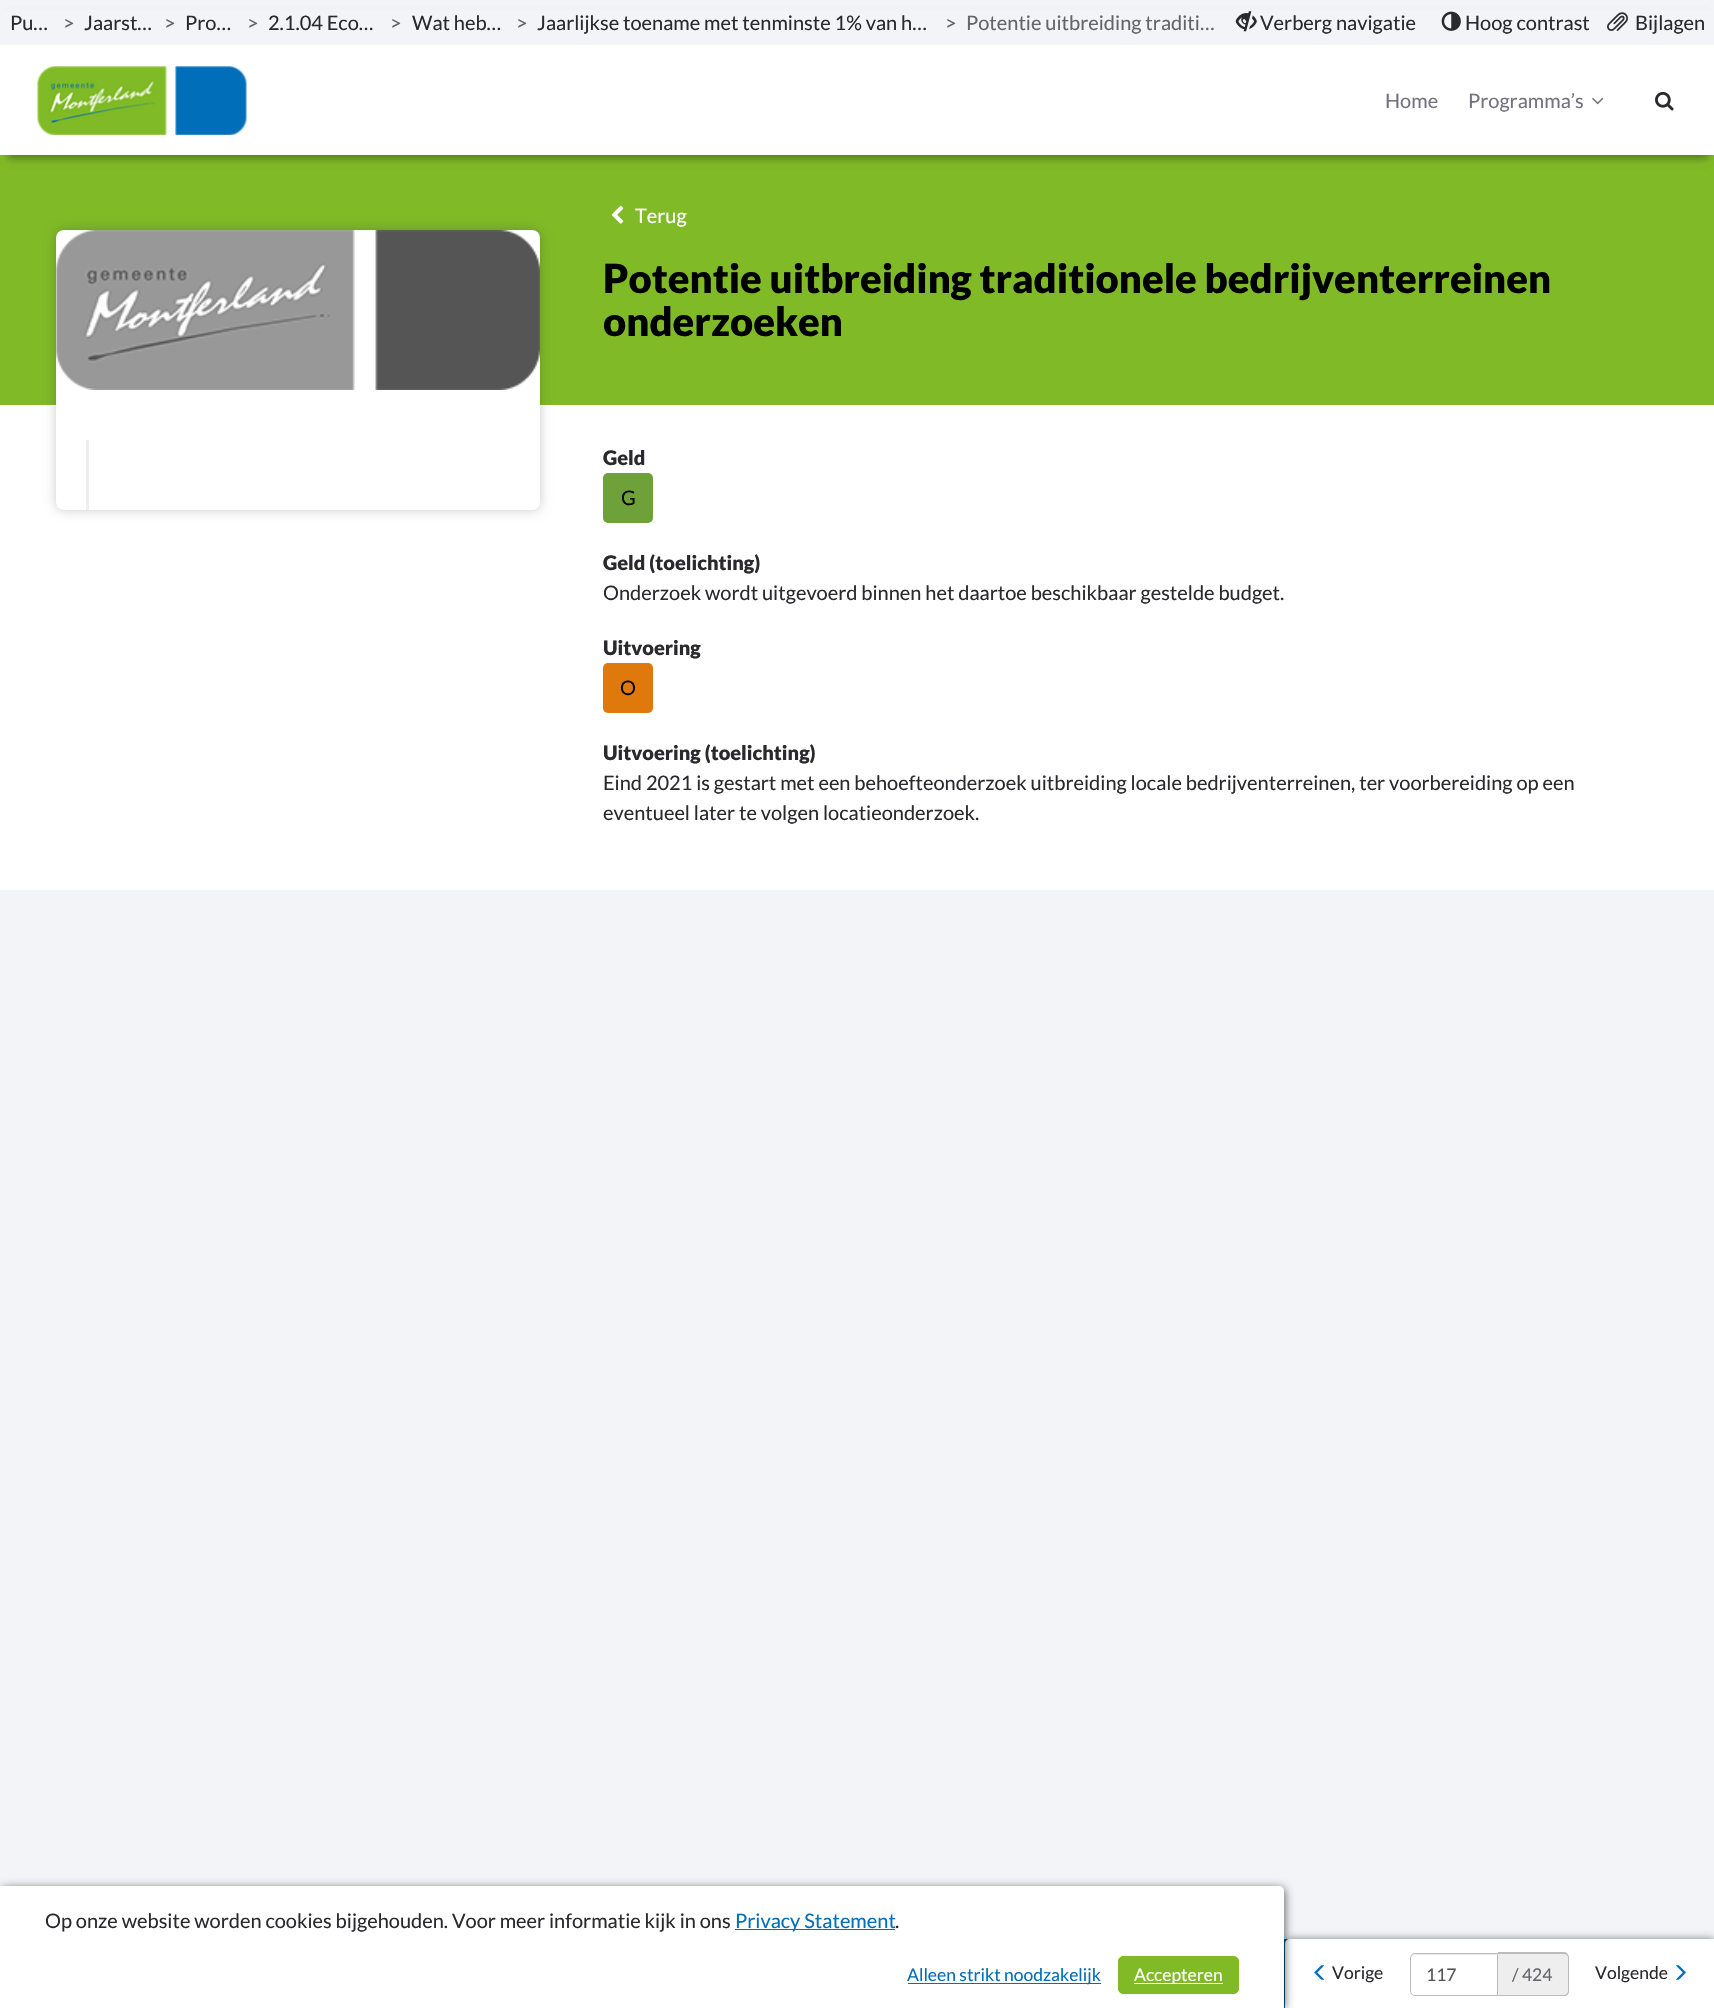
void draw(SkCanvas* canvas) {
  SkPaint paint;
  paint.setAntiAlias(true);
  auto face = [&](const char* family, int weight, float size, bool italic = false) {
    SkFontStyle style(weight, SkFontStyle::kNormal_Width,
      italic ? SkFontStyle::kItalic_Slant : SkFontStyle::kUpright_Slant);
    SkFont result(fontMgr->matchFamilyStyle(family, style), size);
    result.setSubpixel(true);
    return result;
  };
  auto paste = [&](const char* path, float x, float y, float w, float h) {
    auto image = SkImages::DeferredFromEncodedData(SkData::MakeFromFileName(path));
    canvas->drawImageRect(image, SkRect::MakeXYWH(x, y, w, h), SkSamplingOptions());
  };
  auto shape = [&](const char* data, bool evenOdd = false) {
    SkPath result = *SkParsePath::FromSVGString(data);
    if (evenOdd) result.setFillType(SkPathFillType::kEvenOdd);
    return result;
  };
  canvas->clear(0xfff2f4f7);
  paint.setColor(0xff80ba27);
  canvas->drawRect(SkRect::MakeXYWH(0, 155, 1714, 250), paint);
  paint.setColor(0x33000000);
  paint.setMaskFilter(SkMaskFilter::MakeBlur(kNormal_SkBlurStyle, 4));
  canvas->drawRect(SkRect::MakeXYWH(8, 18, 1700, 140), paint);
  paint.setMaskFilter(nullptr);
  paint.setMaskFilter(SkMaskFilter::MakeBlur(kNormal_SkBlurStyle, 4));
  canvas->drawRect(SkRect::MakeXYWH(8, 18, 1700, 140), paint);
  paint.setMaskFilter(nullptr);
  paint.setColor(0xffffffff);
  canvas->drawRect(SkRect::MakeXYWH(0, 45, 1714, 110), paint);
  paint.setColor(0xfff2f4f7);
  canvas->drawRect(SkRect::MakeXYWH(0, 10, 1714, 35), paint);
  paste("img/1.png", 1235, 11, 22, 21);
  paste("img/2.png", 1441, 11, 20, 20);
  paste("img/3.png", 1607, 12, 21, 19);
  paste("img/4.png", 37, 66, 210, 69);
  paste("img/5.png", 1592, 97, 12, 8);
  paste("img/6.png", 1655, 91, 19, 20);
  paste("img/7.png", 611, 205, 13, 19);
  paint.setColor(0xffffffff);
  canvas->drawRect(SkRect::MakeXYWH(0, 405, 1714, 485), paint);
  paint.setColor(0x33000000);
  paint.setMaskFilter(SkMaskFilter::MakeBlur(kNormal_SkBlurStyle, 6));
  canvas->drawRoundRect(SkRect::MakeXYWH(56, 230, 484, 280), 8, 8, paint);
  paint.setMaskFilter(nullptr);
  paint.setColor(0xffffffff);
  canvas->drawRoundRect(SkRect::MakeXYWH(56, 230, 484, 280), 8, 8, paint);
  paste("img/8.png", 56, 230, 484, 160);
  paint.setColor(0xffeeeeee);
  canvas->drawRect(SkRect::MakeXYWH(86, 440, 3, 70), paint);
  paint.setColor(0xff6fa13a);
  canvas->drawRoundRect(SkRect::MakeXYWH(603, 473, 50, 50), 5, 5, paint);
  paint.setColor(0xffdf790c);
  canvas->drawRoundRect(SkRect::MakeXYWH(603, 663, 50, 50), 5, 5, paint);
  paint.setColor(0xff006eb8);
  canvas->drawRect(SkRect::MakeXYWH(1284, 1939, 6, 69), paint);
  paint.setColor(0x99000000);
  paint.setMaskFilter(SkMaskFilter::MakeBlur(kNormal_SkBlurStyle, 5));
  canvas->drawRoundRect(SkRect::MakeXYWH(1286, 1940, 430, 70), 5, 5, paint);
  paint.setMaskFilter(nullptr);
  paint.setColor(0xffffffff);
  canvas->drawPath(shape("M1290 1939H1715V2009H1285V1944C1285 1941 1287 1939 1290 1939Z"), paint);
  paint.setColor(0x99000000);
  paint.setMaskFilter(SkMaskFilter::MakeBlur(kNormal_SkBlurStyle, 5));
  canvas->drawRoundRect(SkRect::MakeXYWH(1, 1888, 1284, 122), 5, 5, paint);
  paint.setMaskFilter(nullptr);
  paint.setColor(0xffffffff);
  canvas->drawPath(shape("M0 1886H1279C1282 1886 1284 1888 1284 1891V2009H0Z"), paint);
  paint.setColor(0xff006eb8);
  canvas->drawRect(SkRect::MakeXYWH(735, 1929, 160, 1), paint);
  canvas->drawRect(SkRect::MakeXYWH(908, 1983, 193, 1), paint);
  paint.setColor(0xff80ba27);
  canvas->drawRoundRect(SkRect::MakeXYWH(1118.5f, 1956.5f, 120, 37), 4.5f, 4.5f, paint);
  paint.setStroke(true);
  paint.setStrokeWidth(1);
  canvas->drawRoundRect(SkRect::MakeXYWH(1118.5f, 1956.5f, 120, 37), 4.5f, 4.5f, paint);
  paint.setStroke(false);
  paint.setColor(0xffffffff);
  canvas->drawRect(SkRect::MakeXYWH(1134, 1983, 89, 1), paint);
  paste("img/9.png", 1314, 1965, 11, 15);
  paint.setColor(0xffececec);
  canvas->drawPath(shape("M1415 1955H1496V1954H1415C1413 1954 1411 1956 1411 1958V1959C1411 1957 1413 1955 1415 1955Z"), paint);
  paint.setStroke(true);
  paint.setColor(0xffbbbbbb);
  canvas->drawPath(shape("M1415 1953.5H1497.5V1995.5H1415C1412.5 1995.5 1410.5 1993.5 1410.5 1991V1958C1410.5 1955.5 1412.5 1953.5 1415 1953.5Z"), paint);
  paint.setStroke(false);
  paint.setColor(0xffeeeeee);
  canvas->drawPath(shape("M1498 1953H1564C1567 1953 1569 1955 1569 1958V1991C1569 1994 1567 1996 1564 1996H1498Z"), paint);
  paint.setColor(0xffbbbbbb);
  canvas->drawPath(shape("M1498 1952H1564C1567 1952 1569 1955 1569 1958V1991C1569 1994 1567 1996 1564 1996H1498ZM1498 1954H1564C1566 1954 1568 1955 1568 1958V1991C1568 1993 1566 1995 1564 1995H1498Z", true), paint);
  paste("img/10.png", 1676, 1965, 10, 15);
  auto f0 = face("Lato", 400, 20);
  paint.setColor(0xff2a292e);
  canvas->drawString("Pu…", 10, 30, f0, paint);
  paint.setColor(0xff656468);
  canvas->drawString(">", 63, 30, f0, paint);
  paint.setColor(0xff2a292e);
  canvas->drawString("Jaarst…", 84, 30, f0, paint);
  paint.setColor(0xff656468);
  canvas->drawString(">", 164, 30, f0, paint);
  paint.setColor(0xff2a292e);
  canvas->drawString("Pro…", 185, 30, f0, paint);
  paint.setColor(0xff656468);
  canvas->drawString(">", 247, 30, f0, paint);
  paint.setColor(0xff2a292e);
  canvas->drawString("2.1.04 Eco…", 268, 30, f0, paint);
  paint.setColor(0xff656468);
  canvas->drawString(">", 390, 30, f0, paint);
  paint.setColor(0xff2a292e);
  canvas->drawString("Wat heb…", 412, 30, f0, paint);
  paint.setColor(0xff656468);
  canvas->drawString(">", 516, 30, f0, paint);
  paint.setColor(0xff2a292e);
  canvas->drawString("Jaarlijkse toename met tenminste 1% van h…", 537, 30, f0, paint);
  paint.setColor(0xff656468);
  canvas->drawString(">", 945, 30, f0, paint);
  canvas->drawString("Potentie uitbreiding traditi…", 966, 30, f0, paint);
  paint.setColor(0xff2a292e);
  {
    const struct { const char* s; float x, y; } items[] = {
      {"Verberg navigatie", 1260, 30},
      {"Hoog contrast", 1465, 30},
      {"Bijlagen", 1635, 30},
    };
    for (auto [s, x, y] : items) {
      canvas->drawString(s, x, y, f0, paint);
    }
  }
  paint.setColor(0xff737280);
  canvas->drawString("Home", 1385, 108, f0, paint);
  canvas->drawString("Programma’s", 1468, 108, f0, paint);
  paint.setColor(0xffffffff);
  canvas->drawString("Terug", 635, 223, f0, paint);
  auto f1 = face("Lato", 900, 40);
  paint.setColor(0xff000000);
  canvas->drawString("Potentie uitbreiding traditionele bedrijventerreinen", 603, 293, f1, paint);
  canvas->drawString("onderzoeken", 603, 336, f1, paint);
  auto f2 = face("Lato", 900, 20);
  paint.setColor(0xff2a292e);
  canvas->drawString("Geld", 603, 465, f2, paint);
  paint.setColor(0xff000000);
  canvas->drawString("G", 621, 505, f0, paint);
  paint.setColor(0xff2a292e);
  canvas->drawString("Geld (toelichting)", 603, 570, f2, paint);
  canvas->drawString("Onderzoek wordt uitgevoerd binnen het daartoe beschikbaar gestelde budget.", 603, 600, f0, paint);
  canvas->drawString("Uitvoering", 603, 655, f2, paint);
  paint.setColor(0xff000000);
  canvas->drawString("O", 620, 695, f0, paint);
  paint.setColor(0xff2a292e);
  canvas->drawString("Uitvoering (toelichting)", 603, 760, f2, paint);
  {
    const struct { const char* s; float x, y; } items[] = {
      {"Eind 2021 is gestart met een behoefteonderzoek uitbreiding locale bedrijventerreinen, ter voorbereiding op een", 603, 790},
      {"eventueel later te volgen locatieonderzoek.", 603, 820},
      {"Op onze website worden cookies bijgehouden. Voor meer informatie kijk in ons", 45, 1928},
    };
    for (auto [s, x, y] : items) {
      canvas->drawString(s, x, y, f0, paint);
    }
  }
  paint.setColor(0xff006eb8);
  canvas->drawString("Privacy Statement", 735, 1928, f0, paint);
  paint.setColor(0xff2a292e);
  canvas->drawString(".", 895, 1928, f0, paint);
  auto f3 = face("Lato", 400, 17.5f);
  paint.setColor(0xff006eb8);
  canvas->drawString("Alleen strikt noodzakelijk", 907, 1981, f3, paint);
  paint.setColor(0xffffffff);
  canvas->drawString("Accepteren", 1134, 1981, f3, paint);
  paint.setColor(0xff2a292e);
  canvas->drawString("Vorige", 1332, 1979, f3, paint);
  paint.setColor(0xff555555);
  canvas->drawString("117", 1426, 1981, f3, paint);
  paint.setColor(0xff656468);
  canvas->drawString("/ 424", 1512, 1981, f3, paint);
  paint.setColor(0xff2a292e);
  canvas->drawString("Volgende", 1595, 1979, f3, paint);
}
